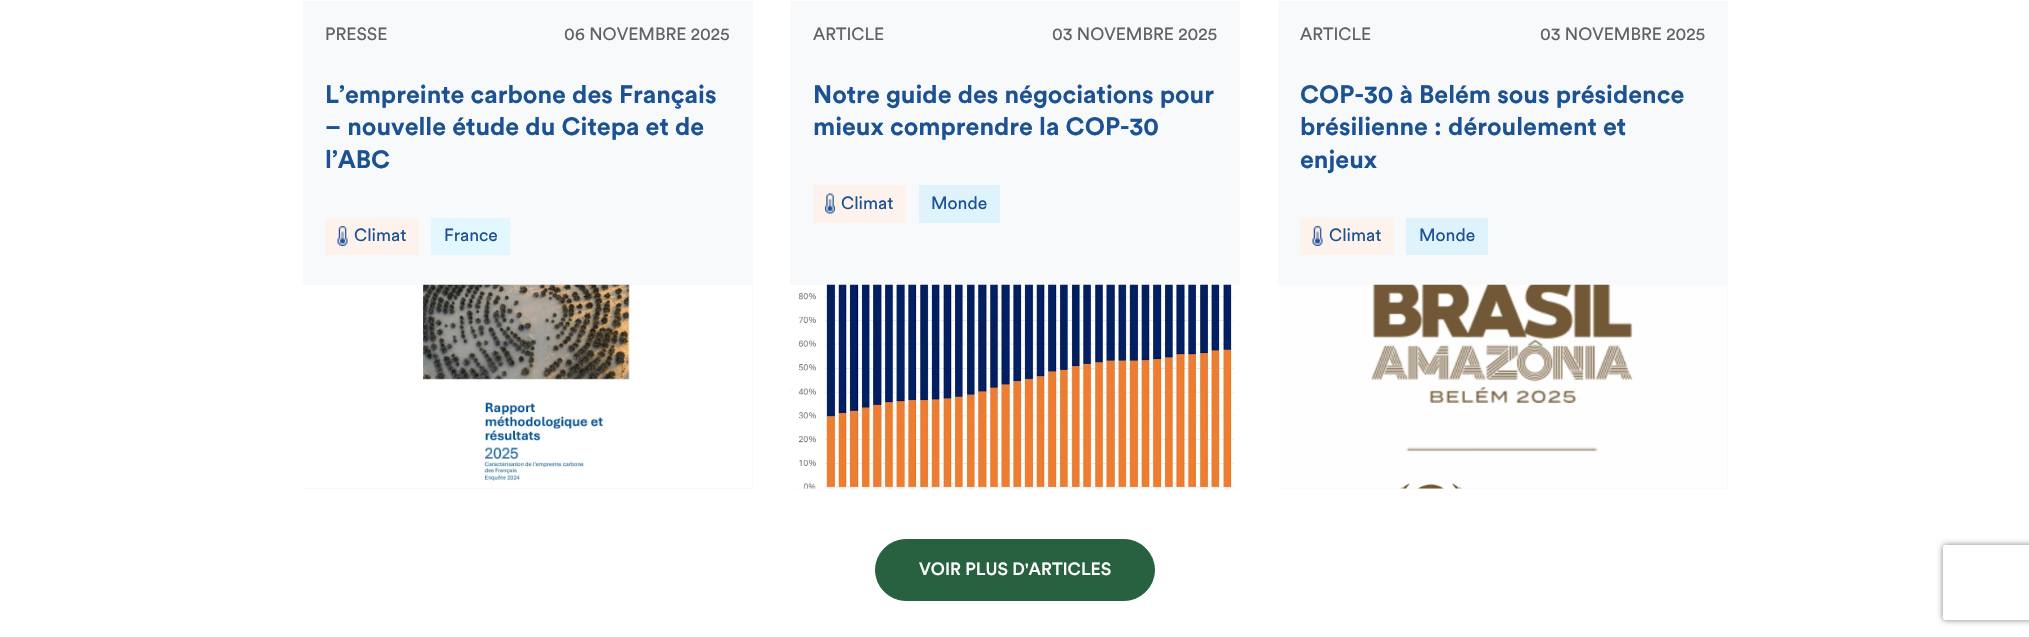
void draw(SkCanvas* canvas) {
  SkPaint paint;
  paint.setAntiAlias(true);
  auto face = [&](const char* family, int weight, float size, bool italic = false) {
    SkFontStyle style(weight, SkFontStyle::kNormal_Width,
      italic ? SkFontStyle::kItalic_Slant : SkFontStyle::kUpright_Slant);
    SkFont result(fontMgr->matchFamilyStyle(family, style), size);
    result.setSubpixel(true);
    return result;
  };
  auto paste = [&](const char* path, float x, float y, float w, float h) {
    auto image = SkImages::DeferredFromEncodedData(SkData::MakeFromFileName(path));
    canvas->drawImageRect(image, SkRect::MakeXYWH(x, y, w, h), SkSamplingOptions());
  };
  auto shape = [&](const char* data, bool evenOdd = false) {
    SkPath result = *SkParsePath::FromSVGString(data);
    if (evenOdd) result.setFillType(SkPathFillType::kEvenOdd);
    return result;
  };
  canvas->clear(0xffffffff);
  paint.setColor(0xfff8f9fb);
  canvas->drawRect(SkRect::MakeXYWH(303, 1, 450, 488), paint);
  paint.setColor(0xfffdf3ec);
  canvas->drawRect(SkRect::MakeXYWH(325, 218, 94, 37), paint);
  paste("img/1.png", 337, 226, 11, 20);
  paint.setColor(0xffe3f7fe);
  canvas->drawRect(SkRect::MakeXYWH(431, 218, 79, 37), paint);
  paste("img/2.png", 303, 284, 449, 204);
  paint.setColor(0xfff8f9fb);
  canvas->drawRect(SkRect::MakeXYWH(790, 1, 450, 488), paint);
  paint.setColor(0xfffdf3ec);
  canvas->drawRect(SkRect::MakeXYWH(813, 185, 93, 38), paint);
  paste("img/3.png", 825, 193, 10, 21);
  paint.setColor(0xffdef3fb);
  canvas->drawRect(SkRect::MakeXYWH(919, 185, 81, 38), paint);
  paste("img/4.png", 790, 284, 450, 205);
  paint.setColor(0xfff8f9fb);
  canvas->drawRect(SkRect::MakeXYWH(1278, 1, 450, 488), paint);
  paint.setColor(0xfffdf3ec);
  canvas->drawRect(SkRect::MakeXYWH(1300, 218, 94, 37), paint);
  paste("img/1.png", 1312, 226, 11, 20);
  paint.setColor(0xffdef3fb);
  canvas->drawRect(SkRect::MakeXYWH(1406, 218, 82, 37), paint);
  paste("img/5.png", 1278, 284, 449, 205);
  paint.setColor(0xff27613f);
  canvas->drawRoundRect(SkRect::MakeXYWH(875.5f, 539.5f, 279, 61), 30.5f, 30.5f, paint);
  paint.setStroke(true);
  paint.setStrokeWidth(1);
  canvas->drawRoundRect(SkRect::MakeXYWH(875.5f, 539.5f, 279, 61), 30.5f, 30.5f, paint);
  canvas->save();
  canvas->clipPath(shape("M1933 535H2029V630H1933ZM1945.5 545H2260.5C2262 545 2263 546 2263 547.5V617.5C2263 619 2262 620 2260.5 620H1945.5C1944 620 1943 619 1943 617.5V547.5C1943 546 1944 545 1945.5 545Z", true), true);
  paint.setStroke(false);
  paint.setColor(0xff808080);
  paint.setMaskFilter(SkMaskFilter::MakeBlur(kNormal_SkBlurStyle, 3));
  canvas->drawRoundRect(SkRect::MakeXYWH(1943, 545, 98, 75), 2.5f, 2.5f, paint);
  paint.setMaskFilter(nullptr);
  canvas->restore();
  auto f0 = face("Circular", 400, 17.5f);
  paint.setColor(0xff616161);
  canvas->drawString("PRESSE", 325, 40, f0, paint);
  canvas->drawString("06 NOVEMBRE 2025", 564, 40, f0, paint);
  auto f1 = face("Circular", 700, 25);
  paint.setColor(0xff1c5294);
  {
    const struct { const char* s; float x, y; } items[] = {
      {"L’empreinte carbone des Français", 325, 103},
      {"– nouvelle étude du Citepa et de", 325, 135},
      {"l’ABC", 325, 168},
    };
    for (auto [s, x, y] : items) {
      canvas->drawString(s, x, y, f1, paint);
    }
  }
  canvas->drawString("Climat", 354, 241, f0, paint);
  canvas->drawString("France", 444, 241, f0, paint);
  paint.setColor(0xff616161);
  canvas->drawString("ARTICLE", 813, 40, f0, paint);
  canvas->drawString("03 NOVEMBRE 2025", 1052, 40, f0, paint);
  paint.setColor(0xff1c5294);
  canvas->drawString("Notre guide des négociations pour", 813, 103, f1, paint);
  canvas->drawString("mieux comprendre la COP-30", 813, 135, f1, paint);
  canvas->drawString("Climat", 841, 209, f0, paint);
  canvas->drawString("Monde", 931, 209, f0, paint);
  paint.setColor(0xff616161);
  canvas->drawString("ARTICLE", 1300, 40, f0, paint);
  canvas->drawString("03 NOVEMBRE 2025", 1540, 40, f0, paint);
  paint.setColor(0xff1c5294);
  {
    const struct { const char* s; float x, y; } items[] = {
      {"COP-30 à Belém sous présidence", 1300, 103},
      {"brésilienne : déroulement et", 1300, 135},
      {"enjeux", 1300, 168},
    };
    for (auto [s, x, y] : items) {
      canvas->drawString(s, x, y, f1, paint);
    }
  }
  canvas->drawString("Climat", 1329, 241, f0, paint);
  canvas->drawString("Monde", 1419, 241, f0, paint);
  auto f2 = face("Circular", 500, 17.5f);
  paint.setColor(0xffffffff);
  canvas->drawString("VOIR PLUS D'ARTICLES", 919, 575, f2, paint);
}
